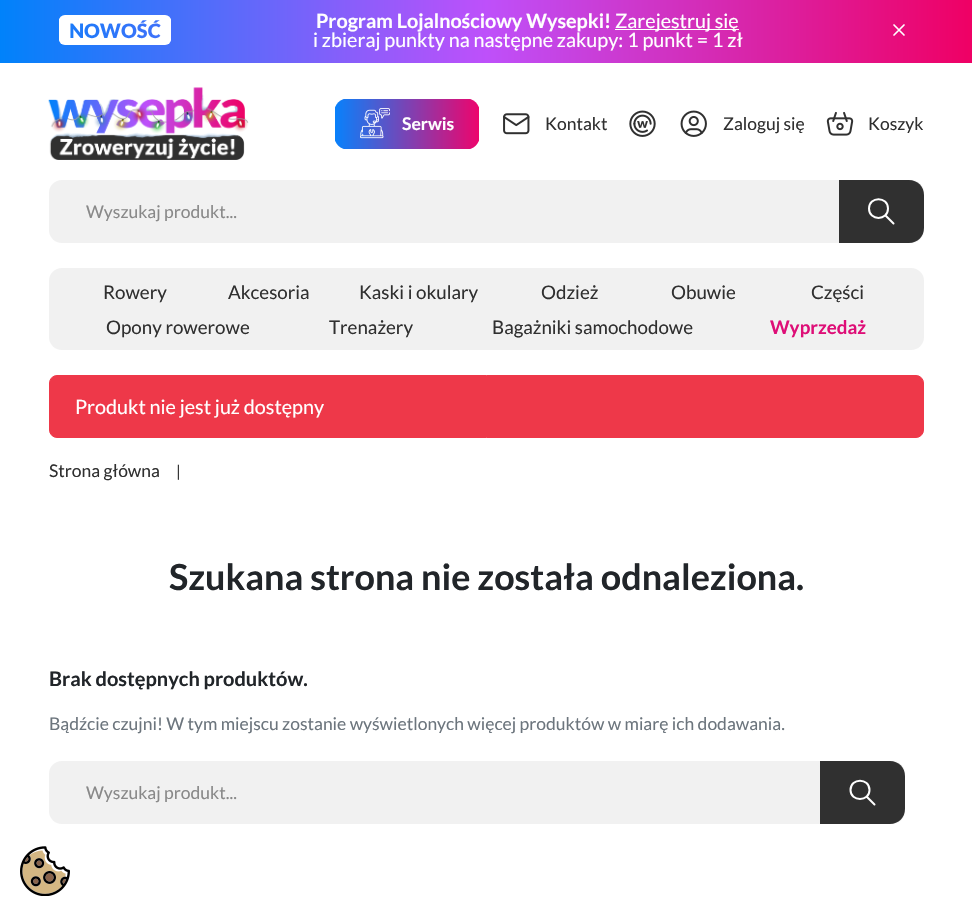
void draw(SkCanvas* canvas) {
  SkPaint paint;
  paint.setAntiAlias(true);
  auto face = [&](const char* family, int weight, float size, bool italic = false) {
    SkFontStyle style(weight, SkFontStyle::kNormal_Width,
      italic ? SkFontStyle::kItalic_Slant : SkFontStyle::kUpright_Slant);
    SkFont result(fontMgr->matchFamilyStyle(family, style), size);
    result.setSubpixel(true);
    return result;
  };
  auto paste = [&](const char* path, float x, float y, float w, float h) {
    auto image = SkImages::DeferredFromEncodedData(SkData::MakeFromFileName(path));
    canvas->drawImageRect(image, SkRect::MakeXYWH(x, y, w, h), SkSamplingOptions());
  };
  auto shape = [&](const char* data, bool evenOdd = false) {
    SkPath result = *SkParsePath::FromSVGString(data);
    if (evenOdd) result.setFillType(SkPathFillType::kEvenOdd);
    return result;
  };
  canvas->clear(0xffffffff);
  {
    const SkColor colors[] = {0xff0082fa, 0xffbe50fa, 0xffef0064};
    const float stops[] = {0, 0.5f, 1};
    const SkPoint ends[] = {{0, 31}, {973, 31}};
    paint.setShader(SkGradientShader::MakeLinear(ends, colors, stops, 3, SkTileMode::kClamp));
    paint.setAlpha(255);
  }
  canvas->drawRect(SkRect::MakeXYWH(0, 0, 972, 63), paint);
  paste("img/1.png", 59, 15, 112, 30);
  paint.setShader(nullptr);
  paint.setColor(0xffffffff);
  canvas->drawRect(SkRect::MakeXYWH(615, 29, 124, 1), paint);
  paint.setStroke(true);
  paint.setStrokeWidth(1.7f);
  paint.setStrokeCap(SkPaint::kRound_Cap);
  paint.setStrokeJoin(SkPaint::kRound_Join);
  canvas->drawPath(shape("M904 25L894 35M894 25L904 35"), paint);
  paste("img/2.png", 48, 87, 201, 73);
  canvas->save();
  canvas->clipPath(shape("M349 98H465C473.5 98 480 104.5 480 113V135C480 143.5 473.5 150 465 150H349C340.5 150 334 143.5 334 135V113C334 104.5 340.5 98 349 98Z"), true);
  paint.setStroke(false);
  {
    const SkColor colors[] = {0xff0881fb, 0xffed056d};
    const float stops[] = {0, 1};
    const SkPoint ends[] = {{335, 124}, {479, 124}};
    paint.setShader(SkGradientShader::MakeLinear(ends, colors, stops, 2, SkTileMode::kClamp));
    paint.setAlpha(255);
  }
  canvas->drawRect(SkRect::MakeXYWH(335, 99, 144, 50), paint);
  canvas->restore();
  paste("img/3.png", 360, 108, 30, 31);
  paste("img/4.png", 503, 113, 27, 22);
  paste("img/5.png", 629, 110, 27, 27);
  paste("img/6.png", 680, 110, 27, 27);
  paste("img/7.png", 826, 111, 28, 25);
  paint.setShader(nullptr);
  paint.setColor(0xfff1f1f1);
  canvas->drawRoundRect(SkRect::MakeXYWH(49, 180, 875, 63), 13, 13, paint);
  paint.setColor(0xff303030);
  canvas->drawPath(shape("M839 180H909C917.5 180 924 186.5 924 195V228C924 236.5 917.5 243 909 243H839Z"), paint);
  paint.setStroke(true);
  paint.setStrokeWidth(2);
  paint.setColor(0xffffffff);
  canvas->drawPath(shape("M869 208.5C869 221 888 221 888 208.5C888 196 869 196 869 208.5M893.5 223.5L885.5 215.5"), paint);
  paint.setStroke(false);
  paint.setColor(0xfff1f1f1);
  canvas->drawRoundRect(SkRect::MakeXYWH(49, 268, 875, 82), 13, 13, paint);
  paint.setColor(0xffee3849);
  canvas->drawRoundRect(SkRect::MakeXYWH(49.5f, 375.5f, 874, 62), 7.5f, 7.5f, paint);
  paint.setStroke(true);
  paint.setStrokeWidth(1);
  paint.setStrokeCap(SkPaint::kButt_Cap);
  paint.setStrokeJoin(SkPaint::kMiter_Join);
  canvas->drawRoundRect(SkRect::MakeXYWH(49.5f, 375.5f, 874, 62), 7.5f, 7.5f, paint);
  paint.setStroke(false);
  paint.setColor(0xfff1f1f1);
  canvas->drawRoundRect(SkRect::MakeXYWH(49, 761, 856, 63), 13, 13, paint);
  paint.setColor(0xff303030);
  canvas->drawPath(shape("M820 761H890C898.5 761 905 767.5 905 776V809C905 817.5 898.5 824 890 824H820Z"), paint);
  paint.setStroke(true);
  paint.setStrokeWidth(2);
  paint.setStrokeCap(SkPaint::kRound_Cap);
  paint.setStrokeJoin(SkPaint::kRound_Join);
  paint.setColor(0xffffffff);
  canvas->drawPath(shape("M850.5 790C850.5 802 869.5 802 869.5 790C869.5 777.5 850.5 777.5 850.5 790M874.5 804.5L866.5 796.5"), paint);
  paste("img/8.png", 20, 846, 50, 50);
  auto f0 = face("Lato", 700, 19.75f);
  paint.setStroke(false);
  canvas->drawString("Program Lojalnościowy Wysepki!", 316, 28, f0, paint);
  auto f1 = face("Lato", 400, 19.75f);
  canvas->drawString("Zarejestruj się", 615, 28, f1, paint);
  canvas->drawString("i zbieraj punkty na następne zakupy: 1 punkt = 1 zł", 313, 47, f1, paint);
  auto f2 = face("Lato", 700, 17.5f);
  canvas->drawString("Serwis", 402, 130, f2, paint);
  auto f3 = face("Lato", 400, 17.5f);
  paint.setColor(0xff303030);
  {
    const struct { const char* s; float x, y; } items[] = {
      {"Kontakt", 545, 130},
      {"Zaloguj się", 723, 130},
      {"Koszyk", 868, 130},
    };
    for (auto [s, x, y] : items) {
      canvas->drawString(s, x, y, f3, paint);
    }
  }
  paint.setColor(0xff898989);
  canvas->drawString("Wyszukaj produkt...", 86, 218, f3, paint);
  auto f4 = face("Lato", 400, 18.75f);
  paint.setColor(0xff303030);
  {
    const struct { const char* s; float x, y; } items[] = {
      {"Rowery", 103, 299},
      {"Akcesoria", 228, 299},
      {"Kaski i okulary", 359, 299},
      {"Odzież", 541, 299},
      {"Obuwie", 671, 299},
      {"Części", 811, 299},
      {"Opony rowerowe", 106, 334},
      {"Trenażery", 329, 334},
      {"Bagażniki samochodowe", 492, 334},
    };
    for (auto [s, x, y] : items) {
      canvas->drawString(s, x, y, f4, paint);
    }
  }
  auto f5 = face("Lato", 700, 18.75f);
  paint.setColor(0xffde0e77);
  canvas->drawString("Wyprzedaż", 770, 334, f5, paint);
  paint.setColor(0xffffffff);
  canvas->drawString("Produkt nie jest już dostępny", 75, 414, f1, paint);
  paint.setColor(0xff303030);
  canvas->drawString("Strona główna", 49, 477, f3, paint);
  auto f6 = face("Lato", 400, 16);
  canvas->drawString("|", 176, 477, f6, paint);
  auto f7 = face("Lato", 700, 35.9f);
  paint.setColor(0xff212529);
  canvas->drawString("Szukana strona nie została odnaleziona.", 169, 590, f7, paint);
  auto f8 = face("Lato", 700, 20);
  canvas->drawString("Brak dostępnych produktów.", 49, 686, f8, paint);
  paint.setColor(0xff6c757d);
  canvas->drawString("Bądźcie czujni! W tym miejscu zostanie wyświetlonych więcej produktów w miarę ich dodawania.", 49, 730, f3, paint);
  paint.setColor(0xff898989);
  canvas->drawString("Wyszukaj produkt...", 86, 799, f3, paint);
}
